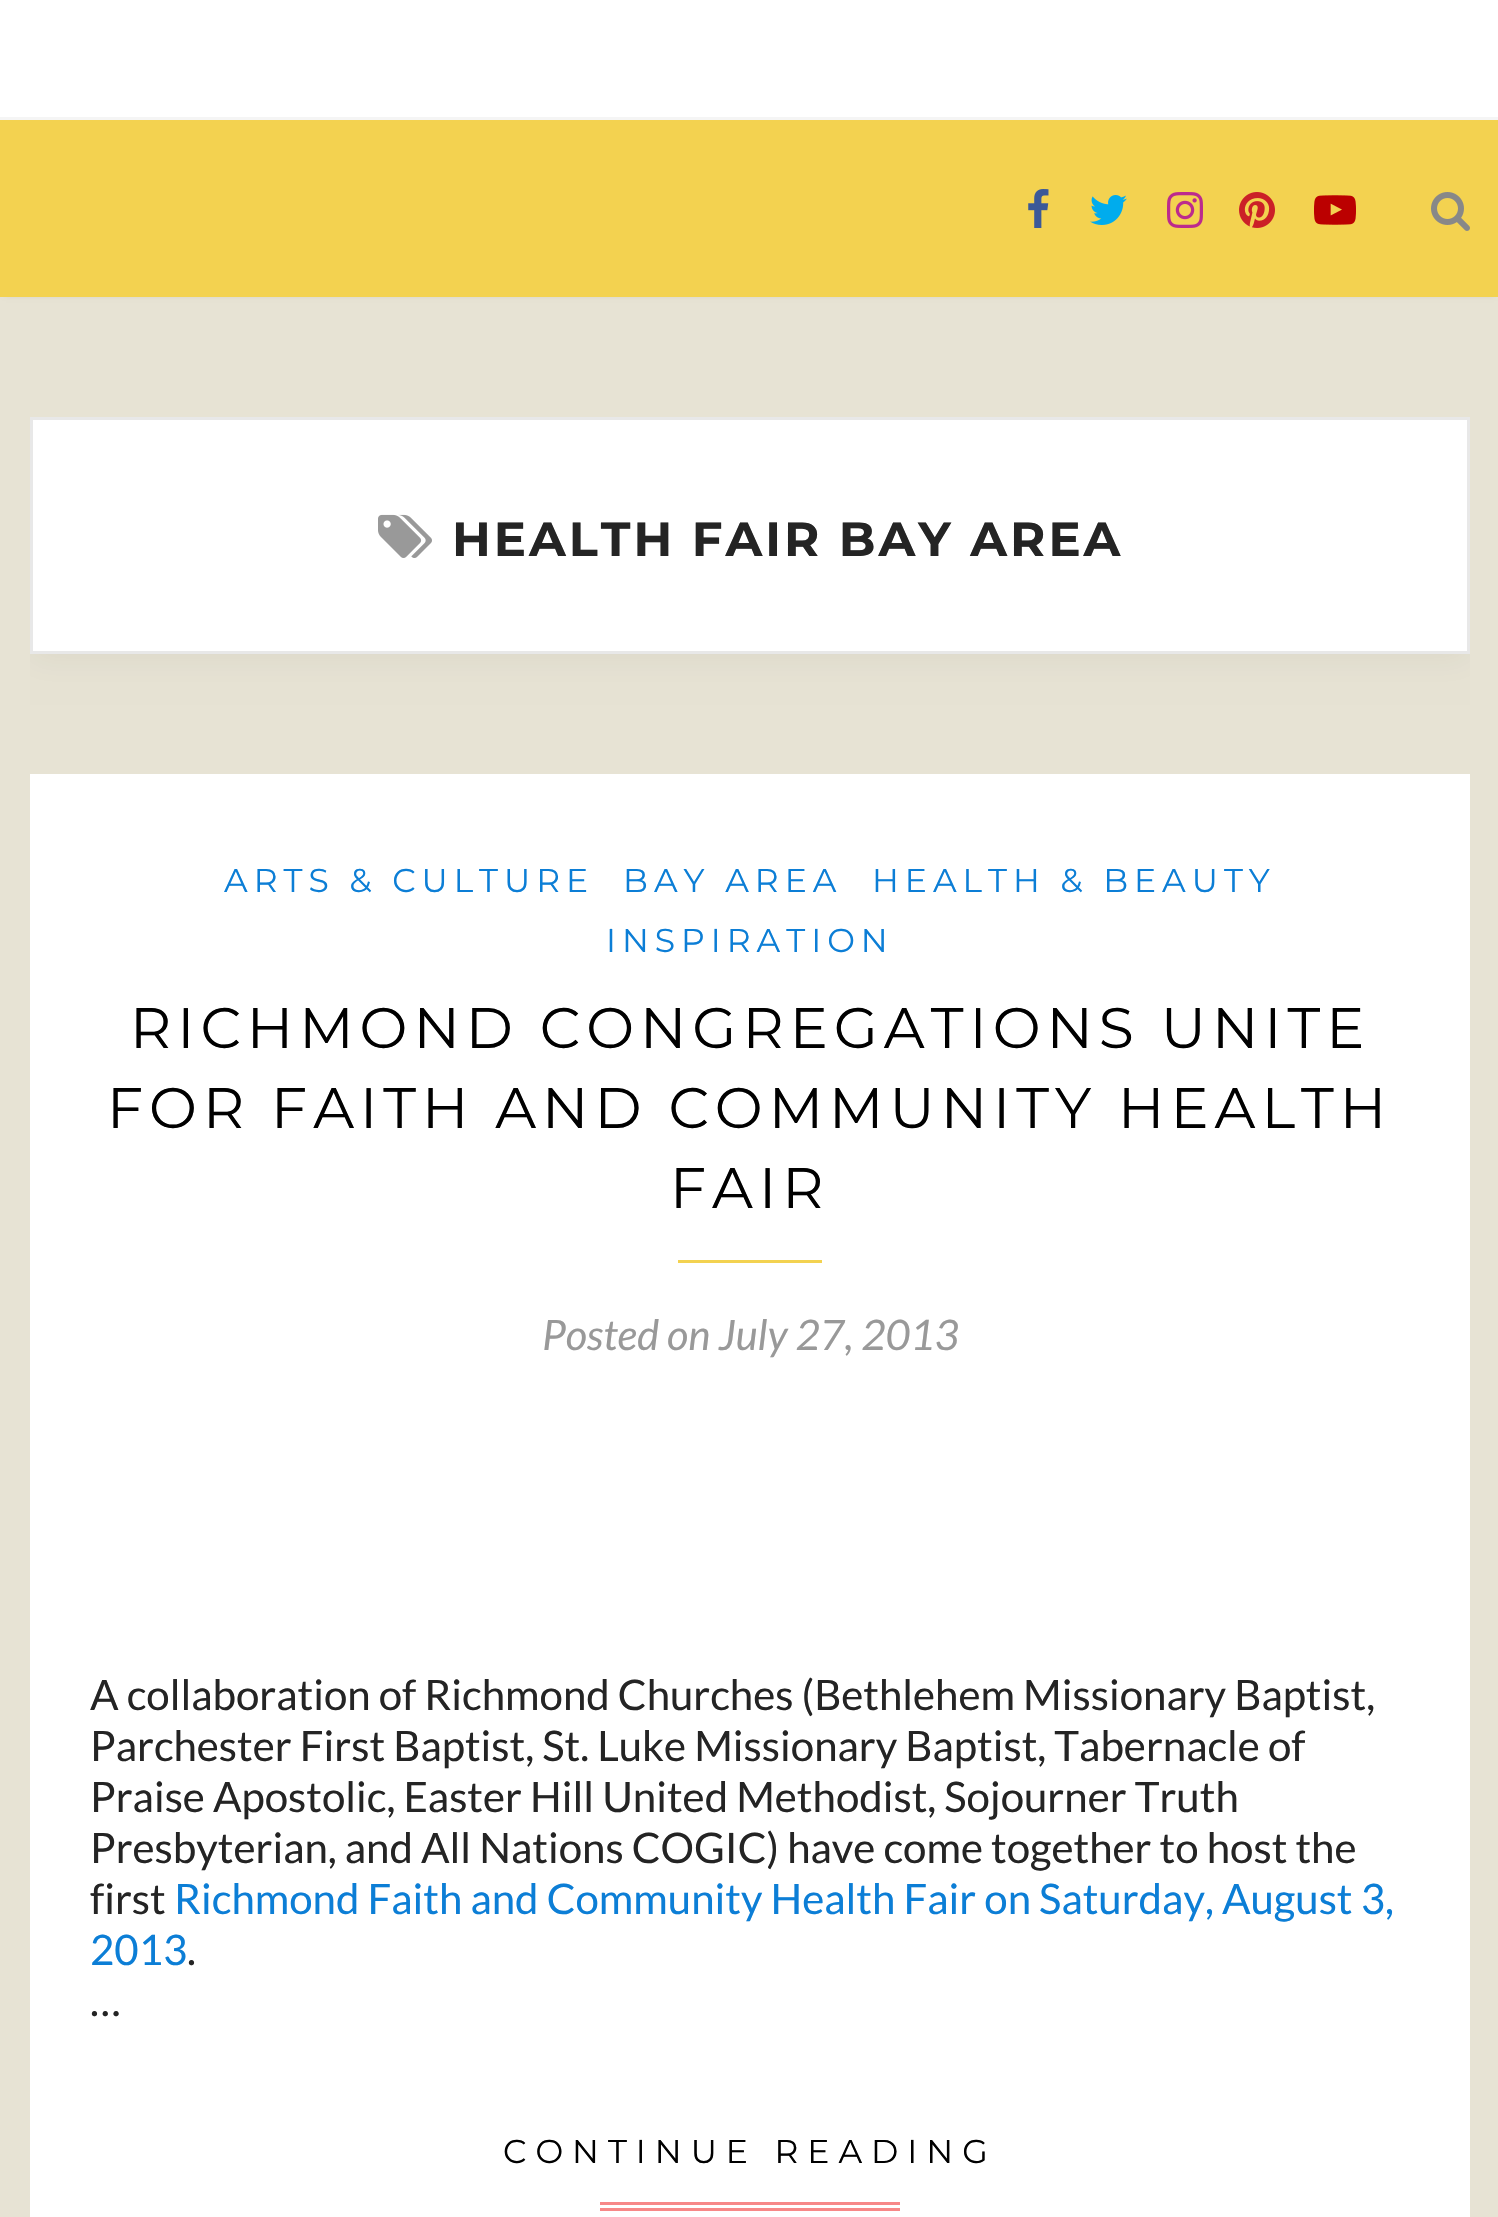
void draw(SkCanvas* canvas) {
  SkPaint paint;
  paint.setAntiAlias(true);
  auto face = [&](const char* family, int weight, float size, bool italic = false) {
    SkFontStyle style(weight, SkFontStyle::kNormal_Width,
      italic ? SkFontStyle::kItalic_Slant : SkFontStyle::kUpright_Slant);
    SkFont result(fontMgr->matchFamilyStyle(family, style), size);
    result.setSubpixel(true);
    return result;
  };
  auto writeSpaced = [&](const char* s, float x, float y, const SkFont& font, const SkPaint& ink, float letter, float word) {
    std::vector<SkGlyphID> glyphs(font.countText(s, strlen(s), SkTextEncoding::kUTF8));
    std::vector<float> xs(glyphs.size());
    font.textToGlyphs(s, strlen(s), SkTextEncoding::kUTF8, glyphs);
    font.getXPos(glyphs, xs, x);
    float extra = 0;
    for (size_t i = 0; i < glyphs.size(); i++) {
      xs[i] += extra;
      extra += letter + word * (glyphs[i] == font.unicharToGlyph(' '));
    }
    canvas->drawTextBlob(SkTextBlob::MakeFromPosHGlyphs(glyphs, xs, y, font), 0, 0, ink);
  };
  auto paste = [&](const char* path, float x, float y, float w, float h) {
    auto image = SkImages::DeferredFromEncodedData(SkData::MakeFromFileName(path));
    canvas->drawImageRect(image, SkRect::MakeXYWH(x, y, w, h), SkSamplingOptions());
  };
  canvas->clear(0xffe7e3d4);
  paint.setColor(0xffffffff);
  canvas->drawRect(SkRect::MakeXYWH(0, 0, 1498, 117), paint);
  paint.setColor(0x33000000);
  paint.setMaskFilter(SkMaskFilter::MakeBlur(kNormal_SkBlurStyle, 3));
  canvas->drawRect(SkRect::MakeXYWH(6, 126, 1488, 168), paint);
  paint.setMaskFilter(nullptr);
  paint.setColor(0xfff3d250);
  canvas->drawRect(SkRect::MakeXYWH(0, 120, 1498, 177), paint);
  paint.setColor(0xfff5f5f5);
  canvas->drawRect(SkRect::MakeXYWH(0, 117, 1498, 3), paint);
  paste("img/1.png", 1028, 189, 21, 39);
  paste("img/2.png", 1090, 195, 37, 30);
  paste("img/3.png", 1167, 192, 36, 36);
  paste("img/4.png", 1239, 192, 36, 36);
  paste("img/5.png", 1314, 195, 42, 30);
  paste("img/6.png", 1431, 192, 39, 39);
  canvas->save();
  canvas->clipRect(SkRect::MakeXYWH(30, 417, 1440, 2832));
  paint.setColor(0x0d000000);
  paint.setMaskFilter(SkMaskFilter::MakeBlur(kNormal_SkBlurStyle, 15));
  canvas->drawRect(SkRect::MakeXYWH(30, 423, 1440, 237), paint);
  paint.setMaskFilter(nullptr);
  canvas->restore();
  paint.setColor(0xffffffff);
  canvas->drawRect(SkRect::MakeXYWH(31.5f, 418.5f, 1437, 234), paint);
  paint.setStroke(true);
  paint.setStrokeWidth(3);
  paint.setColor(0xffe8e8e8);
  canvas->drawRect(SkRect::MakeXYWH(31.5f, 418.5f, 1437, 234), paint);
  paste("img/7.png", 378, 514, 54, 44);
  paint.setStroke(false);
  {
    const struct { float x, y, w, h; SkColor color; } items[] = {
      {30, 774, 1440, 1443, 0xffffffff},
      {678, 1260, 144, 3, 0xfff3d250},
      {600, 2202, 300, 3, 0xfff78888},
      {600, 2208, 300, 3, 0xfff78888},
    };
    for (auto [x, y, w, h, color] : items) {
      paint.setColor(color);
      canvas->drawRect(SkRect::MakeXYWH(x, y, w, h), paint);
    }
  }
  auto f0 = face("Montserrat", 700, 48);
  paint.setColor(0xff242424);
  writeSpaced("HEALTH FAIR BAY AREA", 452, 556, f0, paint, 3, 0);
  auto f1 = face("Montserrat", 400, 33);
  paint.setColor(0xff0c7ed6);
  {
    const struct { const char* s; float x, y; } items[] = {
      {"ARTS & CULTURE", 224, 892},
      {"BAY AREA", 623, 892},
      {"HEALTH & BEAUTY", 872, 892},
      {"INSPIRATION", 606, 952},
    };
    for (auto [s, x, y] : items) {
      writeSpaced(s, x, y, f1, paint, 6, 0);
    }
  }
  auto f2 = face("Montserrat", 400, 57);
  paint.setColor(0xff000000);
  {
    const struct { const char* s; float x, y; } items[] = {
      {"RICHMOND CONGREGATIONS UNITE", 130, 1048},
      {"FOR FAITH AND COMMUNITY HEALTH", 107, 1128},
      {"FAIR", 670, 1208},
    };
    for (auto [s, x, y] : items) {
      writeSpaced(s, x, y, f2, paint, 6, 0);
    }
  }
  auto f3 = face("Lato", 400, 42, true);
  paint.setColor(0xff999999);
  canvas->drawString("Posted on July 27, 2013", 542, 1350, f3, paint);
  auto f4 = face("Lato", 400, 42);
  paint.setColor(0xff242424);
  {
    const struct { const char* s; float x, y; } items[] = {
      {"A collaboration of Richmond Churches (Bethlehem Missionary Baptist,", 90, 1710},
      {"Parchester First Baptist, St. Luke Missionary Baptist, Tabernacle of", 90, 1761},
      {"Praise Apostolic, Easter Hill United Methodist, Sojourner Truth", 90, 1812},
      {"Presbyterian, and All Nations COGIC) have come together to host the", 90, 1863},
      {"first", 90, 1914},
    };
    for (auto [s, x, y] : items) {
      canvas->drawString(s, x, y, f4, paint);
    }
  }
  paint.setColor(0xff0c7ed6);
  canvas->drawString("Richmond Faith and Community Health Fair on Saturday, August 3,", 174, 1914, f4, paint);
  canvas->drawString("2013", 90, 1965, f4, paint);
  paint.setColor(0xff242424);
  canvas->drawString(".", 187, 1965, f4, paint);
  canvas->drawString("…", 90, 2016, f4, paint);
  paint.setColor(0xff000000);
  writeSpaced("CONTINUE READING", 503, 2163, f1, paint, 9, 0);
}
